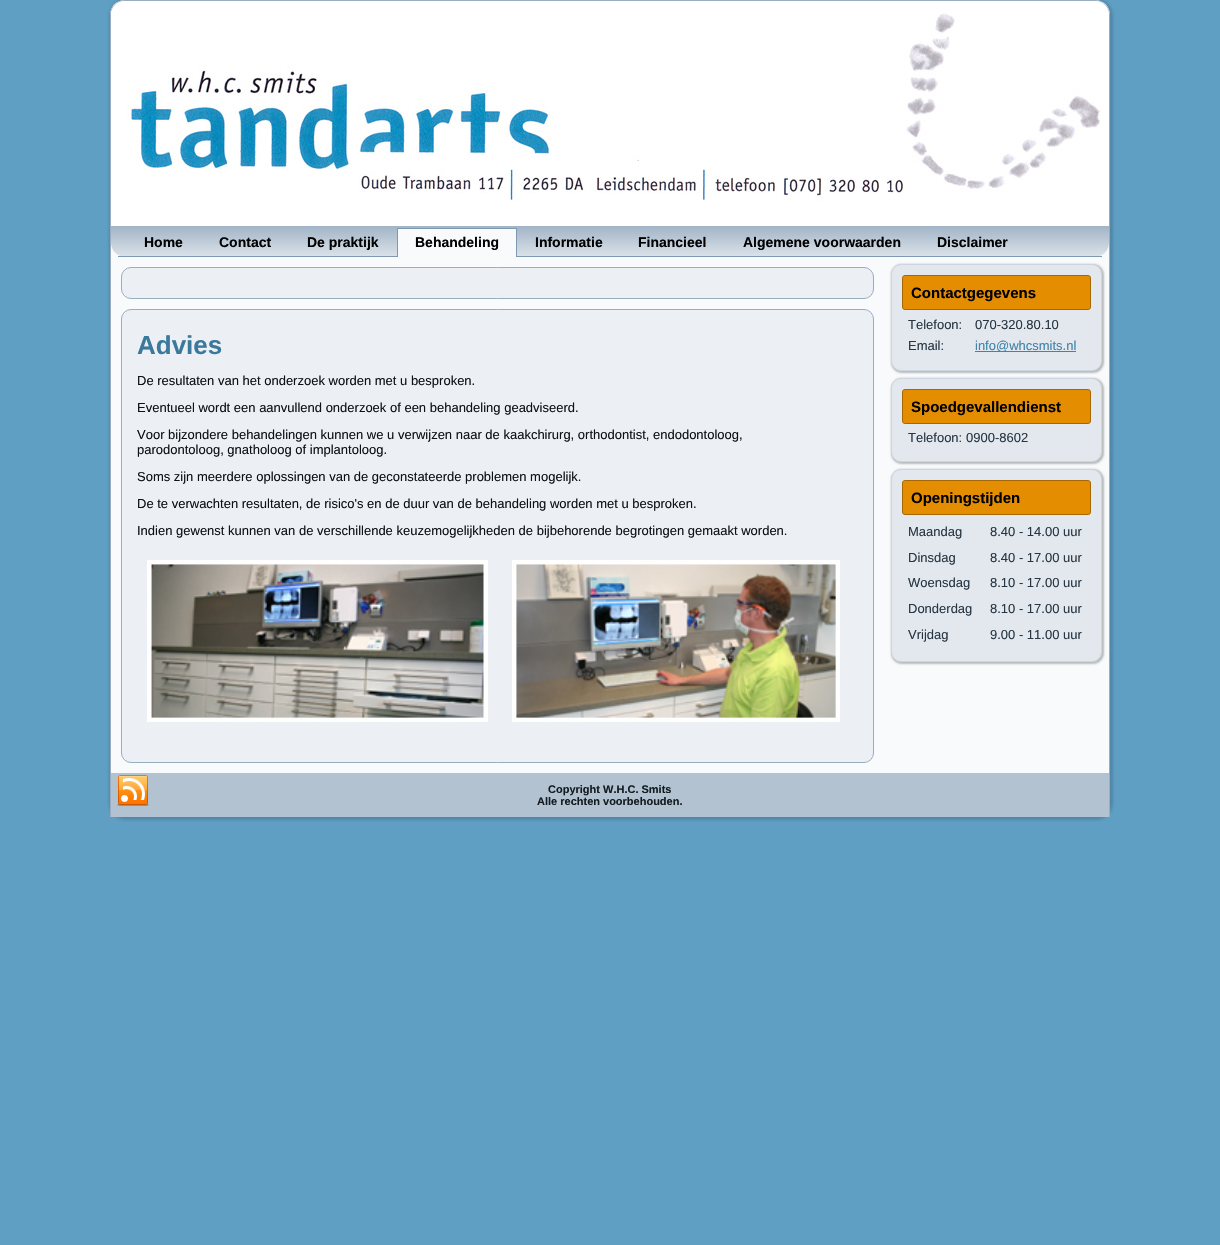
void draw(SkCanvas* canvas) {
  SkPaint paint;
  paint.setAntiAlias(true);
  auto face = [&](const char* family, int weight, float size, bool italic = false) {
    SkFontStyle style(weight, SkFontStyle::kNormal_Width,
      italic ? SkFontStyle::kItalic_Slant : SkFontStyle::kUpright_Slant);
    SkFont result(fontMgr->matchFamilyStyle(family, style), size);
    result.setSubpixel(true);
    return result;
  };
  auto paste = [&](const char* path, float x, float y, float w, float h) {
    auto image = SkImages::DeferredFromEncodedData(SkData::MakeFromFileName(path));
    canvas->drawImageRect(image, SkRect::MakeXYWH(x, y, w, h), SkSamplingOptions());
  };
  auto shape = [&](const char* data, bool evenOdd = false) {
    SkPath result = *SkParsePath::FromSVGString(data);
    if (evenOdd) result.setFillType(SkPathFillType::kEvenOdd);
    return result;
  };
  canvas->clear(0xff5f9fc4);
  paint.setColor(0x26000000);
  paint.setMaskFilter(SkMaskFilter::MakeBlur(kNormal_SkBlurStyle, 1.5f));
  canvas->drawRoundRect(SkRect::MakeXYWH(109, -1, 1004, 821), 17, 17, paint);
  paint.setMaskFilter(nullptr);
  paint.setColor(0xfff9fafb);
  canvas->drawPath(shape("M125 0H1095C1103.5 0 1110 6.5 1110 15V817H110V15C110 6.5 116.5 0 125 0Z"), paint);
  paint.setColor(0xff99adc2);
  canvas->drawPath(shape("M125 0H1095C1103 0 1110 7 1110 15V817H110V15C110 7 117 0 125 0ZM125 1H1095C1103 1 1109 7 1109 15V817H111V15C111 7 117 1 125 1Z", true), paint);
  paste("img/1.png", 111, 1, 998, 225);
  {
    const SkColor colors[] = {0xffa1b4c6, 0xffdce3ea};
    const float stops[] = {0, 1};
    const SkPoint ends[] = {{610, 226}, {610, 257}};
    paint.setShader(SkGradientShader::MakeLinear(ends, colors, stops, 2, SkTileMode::kClamp));
    paint.setAlpha(255);
  }
  canvas->drawPath(shape("M111 226H1109V243C1109 250.5 1102.5 257 1095 257H125C117.5 257 111 250.5 111 243Z"), paint);
  paint.setShader(nullptr);
  {
    const struct { float x, y, w, h; SkColor color; } items[] = {
      {118, 256, 984, 1, 0xff8099b3},
      {398, 229, 118, 28, 0xfff9fafb},
      {397, 228, 120, 1, 0xff8099b3},
      {516, 228, 1, 29, 0xff8099b3},
      {397, 228, 1, 29, 0xff8099b3},
    };
    for (auto [x, y, w, h, color] : items) {
      paint.setColor(color);
      canvas->drawRect(SkRect::MakeXYWH(x, y, w, h), paint);
    }
  }
  paint.setColor(0xffecf0f4);
  canvas->drawRoundRect(SkRect::MakeXYWH(121.5f, 267.5f, 752, 31), 9.5f, 9.5f, paint);
  paint.setStroke(true);
  paint.setStrokeWidth(1);
  paint.setColor(0xff99adc2);
  canvas->drawRoundRect(SkRect::MakeXYWH(121.5f, 267.5f, 752, 31), 9.5f, 9.5f, paint);
  paint.setStroke(false);
  paint.setColor(0xffecf0f4);
  canvas->drawRoundRect(SkRect::MakeXYWH(121.5f, 309.5f, 752, 453), 9.5f, 9.5f, paint);
  paint.setStroke(true);
  paint.setColor(0xff99adc2);
  canvas->drawRoundRect(SkRect::MakeXYWH(121.5f, 309.5f, 752, 453), 9.5f, 9.5f, paint);
  paste("img/2.png", 147, 560, 341, 162);
  paste("img/3.png", 512, 560, 328, 162);
  paint.setStroke(false);
  paint.setColor(0x40000000);
  paint.setMaskFilter(SkMaskFilter::MakeBlur(kNormal_SkBlurStyle, 1));
  canvas->drawRoundRect(SkRect::MakeXYWH(891, 264, 213, 109), 11, 11, paint);
  paint.setMaskFilter(nullptr);
  paint.setColor(0xffe2e8ee);
  canvas->drawRoundRect(SkRect::MakeXYWH(891.5f, 264.5f, 210, 106), 9.5f, 9.5f, paint);
  paint.setStroke(true);
  paint.setColor(0xffccd6e0);
  canvas->drawRoundRect(SkRect::MakeXYWH(891.5f, 264.5f, 210, 106), 9.5f, 9.5f, paint);
  paint.setStroke(false);
  paint.setColor(0xffe48d01);
  canvas->drawRoundRect(SkRect::MakeXYWH(902.5f, 275.5f, 188, 34), 2.5f, 2.5f, paint);
  paint.setStroke(true);
  paint.setColor(0xffa76801);
  canvas->drawRoundRect(SkRect::MakeXYWH(902.5f, 275.5f, 188, 34), 2.5f, 2.5f, paint);
  paint.setStroke(false);
  paint.setColor(0xff3f84ab);
  canvas->drawRect(SkRect::MakeXYWH(975, 351, 101, 1), paint);
  paint.setColor(0x40000000);
  paint.setMaskFilter(SkMaskFilter::MakeBlur(kNormal_SkBlurStyle, 1));
  canvas->drawRoundRect(SkRect::MakeXYWH(891, 378, 213, 86), 11, 11, paint);
  paint.setMaskFilter(nullptr);
  paint.setColor(0xffe2e8ee);
  canvas->drawRoundRect(SkRect::MakeXYWH(891.5f, 378.5f, 210, 83), 9.5f, 9.5f, paint);
  paint.setStroke(true);
  paint.setColor(0xffccd6e0);
  canvas->drawRoundRect(SkRect::MakeXYWH(891.5f, 378.5f, 210, 83), 9.5f, 9.5f, paint);
  paint.setStroke(false);
  paint.setColor(0xffe48d01);
  canvas->drawRoundRect(SkRect::MakeXYWH(902.5f, 389.5f, 188, 34), 2.5f, 2.5f, paint);
  paint.setStroke(true);
  paint.setColor(0xffa76801);
  canvas->drawRoundRect(SkRect::MakeXYWH(902.5f, 389.5f, 188, 34), 2.5f, 2.5f, paint);
  paint.setStroke(false);
  paint.setColor(0x40000000);
  paint.setMaskFilter(SkMaskFilter::MakeBlur(kNormal_SkBlurStyle, 1));
  canvas->drawRoundRect(SkRect::MakeXYWH(891, 469, 213, 195), 11, 11, paint);
  paint.setMaskFilter(nullptr);
  paint.setColor(0xffe2e8ee);
  canvas->drawRoundRect(SkRect::MakeXYWH(891.5f, 469.5f, 210, 192), 9.5f, 9.5f, paint);
  paint.setStroke(true);
  paint.setColor(0xffccd6e0);
  canvas->drawRoundRect(SkRect::MakeXYWH(891.5f, 469.5f, 210, 192), 9.5f, 9.5f, paint);
  paint.setStroke(false);
  paint.setColor(0xffe48d01);
  canvas->drawRoundRect(SkRect::MakeXYWH(902.5f, 480.5f, 188, 34), 2.5f, 2.5f, paint);
  paint.setStroke(true);
  paint.setColor(0xffa76801);
  canvas->drawRoundRect(SkRect::MakeXYWH(902.5f, 480.5f, 188, 34), 2.5f, 2.5f, paint);
  paint.setStroke(false);
  paint.setColor(0xffb2c2d1);
  canvas->drawRect(SkRect::MakeXYWH(111, 773, 998, 44), paint);
  paste("img/4.png", 117, 775, 32, 31);
  auto f0 = face("Liberation Sans", 700, 14);
  paint.setColor(0xff000000);
  {
    const struct { const char* s; float x, y; } items[] = {
      {"Home", 144, 247},
      {"Contact", 219, 247},
      {"De praktijk", 307, 247},
      {"Behandeling", 415, 247},
      {"Informatie", 535, 247},
      {"Financieel", 638, 247},
      {"Algemene voorwaarden", 743, 247},
      {"Disclaimer", 937, 247},
    };
    for (auto [s, x, y] : items) {
      canvas->drawString(s, x, y, f0, paint);
    }
  }
  auto f1 = face("Liberation Sans", 700, 26);
  paint.setColor(0xff3a789c);
  canvas->drawString("Advies", 137, 354, f1, paint);
  auto f2 = face("Liberation Sans", 400, 13);
  paint.setColor(0xff0d1216);
  {
    const struct { const char* s; float x, y; } items[] = {
      {"De resultaten van het onderzoek worden met u besproken.", 137, 385},
      {"Eventueel wordt een aanvullend onderzoek of een behandeling geadviseerd.", 137, 412},
      {"Voor bijzondere behandelingen kunnen we u verwijzen naar de kaakchirurg, orthodontist, endodontoloog,", 137, 439},
      {"parodontoloog, gnatholoog of implantoloog.", 137, 454},
      {"Soms zijn meerdere oplossingen van de geconstateerde problemen mogelijk.", 137, 481},
      {"De te verwachten resultaten, de risico's en de duur van de behandeling worden met u besproken.", 137, 508},
      {"Indien gewenst kunnen van de verschillende keuzemogelijkheden de bijbehorende begrotingen gemaakt worden.", 137, 535},
    };
    for (auto [s, x, y] : items) {
      canvas->drawString(s, x, y, f2, paint);
    }
  }
  auto f3 = face("Liberation Sans", 700, 15);
  paint.setColor(0xff000000);
  canvas->drawString("Contactgegevens", 911, 298, f3, paint);
  paint.setColor(0xff283643);
  {
    const struct { const char* s; float x, y; } items[] = {
      {"Telefoon:", 908, 329},
      {"070-320.80.10", 975, 329},
      {"Email:", 908, 350},
    };
    for (auto [s, x, y] : items) {
      canvas->drawString(s, x, y, f2, paint);
    }
  }
  paint.setColor(0xff3f84ab);
  canvas->drawString("info@whcsmits.nl", 975, 350, f2, paint);
  paint.setColor(0xff000000);
  canvas->drawString("Spoedgevallendienst", 911, 412, f3, paint);
  paint.setColor(0xff283643);
  canvas->drawString("Telefoon:", 908, 442, f2, paint);
  canvas->drawString("0900-8602", 966, 442, f2, paint);
  paint.setColor(0xff000000);
  canvas->drawString("Openingstijden", 911, 503, f3, paint);
  paint.setColor(0xff283643);
  {
    const struct { const char* s; float x, y; } items[] = {
      {"Maandag", 908, 536},
      {"8.40 - 14.00 uur", 990, 536},
      {"Dinsdag", 908, 562},
      {"8.40 - 17.00 uur", 990, 562},
      {"Woensdag", 908, 587},
      {"8.10 - 17.00 uur", 990, 587},
      {"Donderdag", 908, 613},
      {"8.10 - 17.00 uur", 990, 613},
      {"Vrijdag", 908, 639},
      {"9.00 - 11.00 uur", 990, 639},
    };
    for (auto [s, x, y] : items) {
      canvas->drawString(s, x, y, f2, paint);
    }
  }
  auto f4 = face("Liberation Sans", 700, 11);
  paint.setColor(0xff131a20);
  canvas->drawString("Copyright W.H.C. Smits", 548, 793, f4, paint);
  canvas->drawString("Alle rechten voorbehouden.", 537, 805, f4, paint);
}
